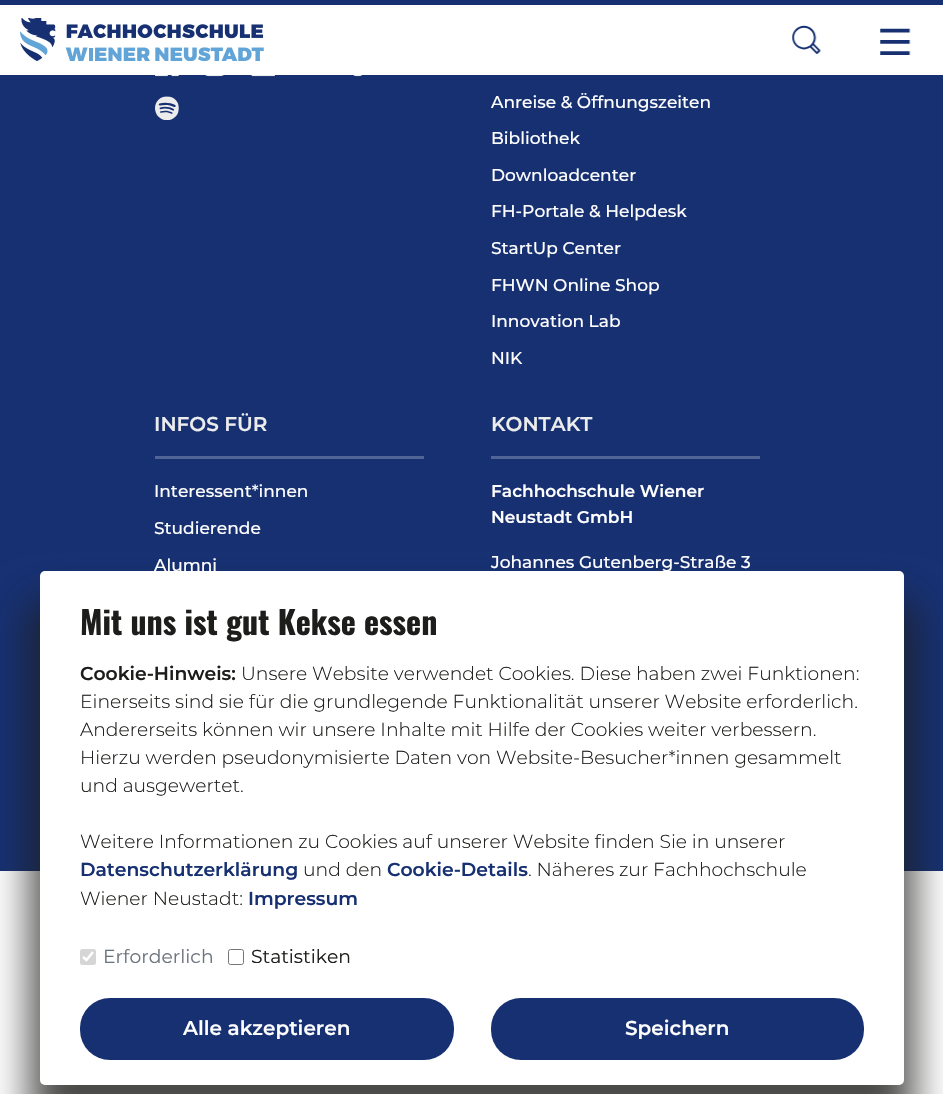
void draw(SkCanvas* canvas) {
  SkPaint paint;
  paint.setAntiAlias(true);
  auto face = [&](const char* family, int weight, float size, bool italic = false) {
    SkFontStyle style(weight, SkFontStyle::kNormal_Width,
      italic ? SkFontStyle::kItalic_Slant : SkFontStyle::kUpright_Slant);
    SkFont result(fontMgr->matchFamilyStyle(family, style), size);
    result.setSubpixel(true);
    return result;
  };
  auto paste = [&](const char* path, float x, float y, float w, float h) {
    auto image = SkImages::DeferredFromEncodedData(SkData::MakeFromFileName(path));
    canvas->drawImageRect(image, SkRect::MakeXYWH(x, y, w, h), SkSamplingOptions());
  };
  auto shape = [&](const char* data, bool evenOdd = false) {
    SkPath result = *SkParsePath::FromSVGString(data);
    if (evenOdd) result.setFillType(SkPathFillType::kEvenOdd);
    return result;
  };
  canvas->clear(0xffffffff);
  paint.setColor(0xff163072);
  canvas->drawRect(SkRect::MakeXYWH(0, 0, 943, 5), paint);
  paste("img/1.png", 20, 18, 244, 43);
  paste("img/2.png", 792, 25, 30, 29);
  paste("img/3.png", 880, 28, 31, 27);
  canvas->drawRect(SkRect::MakeXYWH(0, 75, 943, 796), paint);
  paste("img/4.png", 155, 75, 24, 2);
  paste("img/5.png", 205, 75, 19, 2);
  paste("img/6.png", 251, 75, 24, 2);
  paste("img/7.png", 353, 75, 9, 2);
  paste("img/8.png", 155, 96, 24, 24);
  paint.setColor(0xff506495);
  canvas->drawRect(SkRect::MakeXYWH(155, 456, 269, 3), paint);
  canvas->drawRect(SkRect::MakeXYWH(491, 456, 269, 3), paint);
  paint.setColor(0xcc1d1d1b);
  paint.setMaskFilter(SkMaskFilter::MakeBlur(kNormal_SkBlurStyle, 20));
  canvas->drawRoundRect(SkRect::MakeXYWH(30, 601, 884, 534), 15, 15, paint);
  paint.setMaskFilter(nullptr);
  paint.setColor(0xffffffff);
  canvas->drawRoundRect(SkRect::MakeXYWH(40, 571, 864, 514), 5, 5, paint);
  paint.setColor(0xffd6d6d6);
  canvas->drawRoundRect(SkRect::MakeXYWH(80, 949, 16, 16), 2.5f, 2.5f, paint);
  paint.setStroke(true);
  paint.setStrokeWidth(2.6f);
  paint.setColor(0xffffffff);
  canvas->drawPath(shape("M83 957L86.5 960L93 952"), paint);
  paint.setStrokeWidth(1);
  paint.setColor(0xff767676);
  canvas->drawRoundRect(SkRect::MakeXYWH(228.5f, 949.5f, 15, 15), 2, 2, paint);
  paint.setStroke(false);
  paint.setColor(0xff163072);
  canvas->drawRoundRect(SkRect::MakeXYWH(80, 998, 374, 62), 30, 30, paint);
  canvas->drawRoundRect(SkRect::MakeXYWH(491, 998, 373, 62), 30, 30, paint);
  auto f0 = face("Montserrat", 500, 17);
  paint.setColor(0xffffffff);
  {
    const struct { const char* s; float x, y; } items[] = {
      {"Anreise & Öffnungszeiten", 491, 108},
      {"Bibliothek", 491, 144},
      {"Downloadcenter", 491, 181},
      {"FH-Portale & Helpdesk", 491, 217},
      {"StartUp Center", 491, 254},
      {"FHWN Online Shop", 491, 291},
      {"Innovation Lab", 491, 327},
      {"NIK", 491, 364},
    };
    for (auto [s, x, y] : items) {
      canvas->drawString(s, x, y, f0, paint);
    }
  }
  auto f1 = face("Montserrat", 600, 20);
  paint.setColor(0xffececec);
  canvas->drawString("INFOS FÜR", 154, 431, f1, paint);
  paint.setColor(0xffffffff);
  {
    const struct { const char* s; float x, y; } items[] = {
      {"Interessent*innen", 154, 497},
      {"Studierende", 154, 534},
      {"Alumni", 154, 571},
    };
    for (auto [s, x, y] : items) {
      canvas->drawString(s, x, y, f0, paint);
    }
  }
  paint.setColor(0xffececec);
  canvas->drawString("KONTAKT", 491, 431, f1, paint);
  auto f2 = face("Montserrat", 600, 17);
  paint.setColor(0xffffffff);
  canvas->drawString("Fachhochschule Wiener", 491, 497, f2, paint);
  canvas->drawString("Neustadt GmbH", 491, 523, f2, paint);
  canvas->drawString("Johannes Gutenberg-Straße 3", 491, 568, f0, paint);
  auto f3 = face("Oswald", 700, 32);
  paint.setColor(0xff1d1d1b);
  canvas->drawString("Mit uns ist gut Kekse essen", 80, 635, f3, paint);
  auto f4 = face("Montserrat", 600, 18.75f);
  canvas->drawString("Cookie-Hinweis:", 80, 680, f4, paint);
  auto f5 = face("Montserrat", 300, 18.75f);
  {
    const struct { const char* s; float x, y; } items[] = {
      {"Unsere Website verwendet Cookies. Diese haben zwei Funktionen:", 241, 680},
      {"Einerseits sind sie für die grundlegende Funktionalität unserer Website erforderlich.", 80, 708},
      {"Andererseits können wir unsere Inhalte mit Hilfe der Cookies weiter verbessern.", 80, 736},
      {"Hierzu werden pseudonymisierte Daten von Website-Besucher*innen gesammelt", 80, 764},
      {"und ausgewertet.", 80, 792},
      {"Weitere Informationen zu Cookies auf unserer Website finden Sie in unserer", 80, 848},
    };
    for (auto [s, x, y] : items) {
      canvas->drawString(s, x, y, f5, paint);
    }
  }
  paint.setColor(0xff163072);
  canvas->drawString("Datenschutzerklärung", 80, 876, f4, paint);
  paint.setColor(0xff1d1d1b);
  canvas->drawString("und den", 303, 876, f5, paint);
  paint.setColor(0xff163072);
  canvas->drawString("Cookie-Details", 387, 876, f4, paint);
  paint.setColor(0xff1d1d1b);
  canvas->drawString(". Näheres zur Fachhochschule", 528, 876, f5, paint);
  canvas->drawString("Wiener Neustadt:", 80, 905, f5, paint);
  paint.setColor(0xff163072);
  canvas->drawString("Impressum", 248, 905, f4, paint);
  auto f6 = face("Montserrat", 400, 18.75f);
  paint.setColor(0xff6c757d);
  canvas->drawString("Erforderlich", 103, 963, f6, paint);
  paint.setColor(0xff1d1d1b);
  canvas->drawString("Statistiken", 251, 963, f6, paint);
  paint.setColor(0xffffffff);
  canvas->drawString("Alle akzeptieren", 183, 1035, f1, paint);
  canvas->drawString("Speichern", 625, 1035, f1, paint);
}
